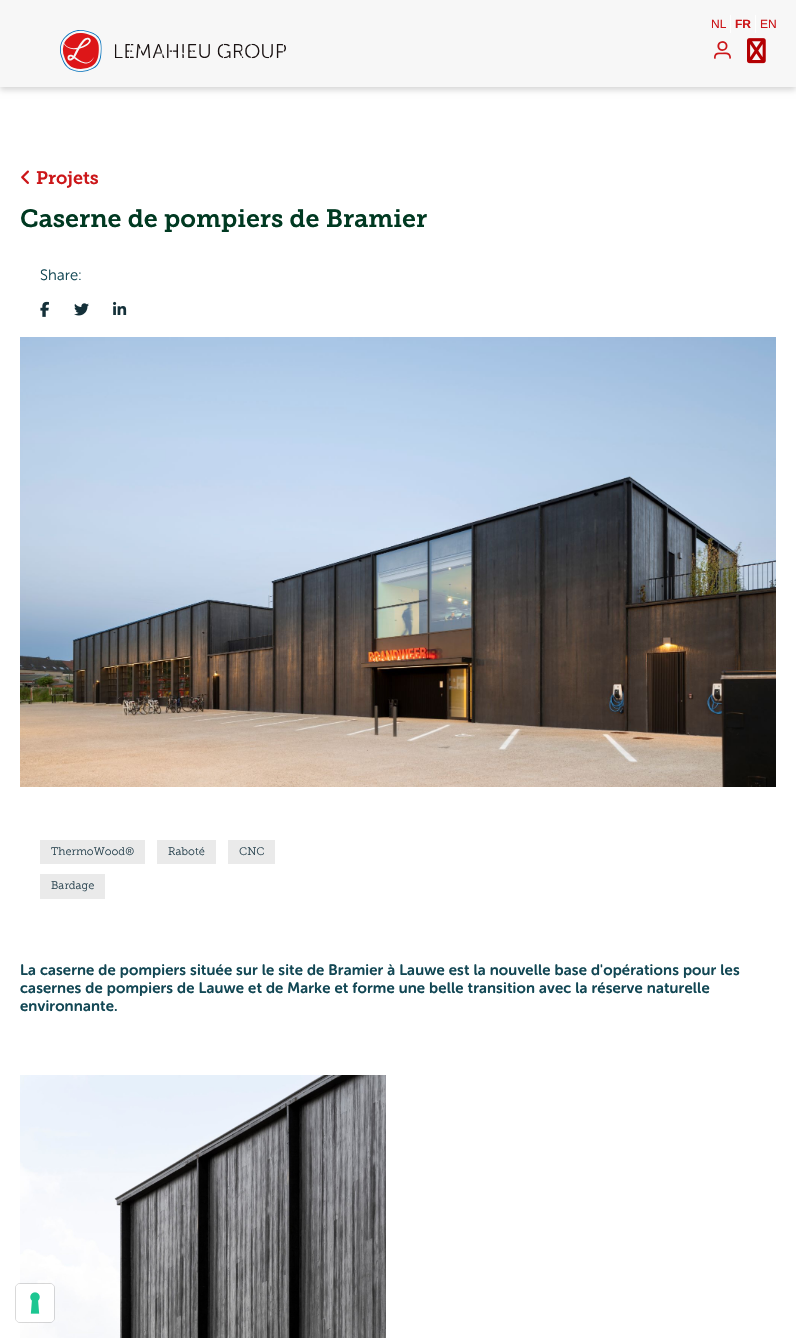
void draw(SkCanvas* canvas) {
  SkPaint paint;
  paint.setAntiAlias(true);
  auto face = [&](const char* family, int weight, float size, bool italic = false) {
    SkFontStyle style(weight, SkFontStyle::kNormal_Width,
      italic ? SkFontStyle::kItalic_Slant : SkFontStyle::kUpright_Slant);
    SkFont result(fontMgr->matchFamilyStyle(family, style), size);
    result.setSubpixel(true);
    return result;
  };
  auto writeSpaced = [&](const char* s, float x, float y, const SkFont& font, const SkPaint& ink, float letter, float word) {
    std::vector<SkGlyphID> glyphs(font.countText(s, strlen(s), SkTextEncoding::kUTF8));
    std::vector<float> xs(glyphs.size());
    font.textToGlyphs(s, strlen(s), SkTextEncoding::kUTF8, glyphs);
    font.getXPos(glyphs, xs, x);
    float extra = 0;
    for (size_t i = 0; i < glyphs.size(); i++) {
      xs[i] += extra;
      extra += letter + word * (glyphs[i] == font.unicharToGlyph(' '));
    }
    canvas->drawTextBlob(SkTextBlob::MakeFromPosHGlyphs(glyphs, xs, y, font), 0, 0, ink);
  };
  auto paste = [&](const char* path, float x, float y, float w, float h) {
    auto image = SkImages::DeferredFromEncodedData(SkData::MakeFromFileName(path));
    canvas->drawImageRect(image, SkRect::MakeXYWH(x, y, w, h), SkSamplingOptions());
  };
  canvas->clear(0xffffffff);
  paint.setColor(0x29000000);
  paint.setMaskFilter(SkMaskFilter::MakeBlur(kNormal_SkBlurStyle, 3));
  canvas->drawRect(SkRect::MakeXYWH(0, 3, 796, 87), paint);
  paint.setMaskFilter(nullptr);
  {
    const struct { float x, y, w, h; SkColor color; } items[] = {
      {0, 0, 796, 87, 0xfff7f7f7},
      {730, 15, 1, 18, 0xffffffff},
      {755, 15, 1, 18, 0xffffffff},
    };
    for (auto [x, y, w, h, color] : items) {
      paint.setColor(color);
      canvas->drawRect(SkRect::MakeXYWH(x, y, w, h), paint);
    }
  }
  paste("img/1.png", 60, 30, 226, 42);
  paste("img/2.png", 747, 38, 19, 26);
  paste("img/3.png", 714, 41, 17, 18);
  paste("img/4.png", 21, 170, 8, 14);
  paste("img/5.png", 40, 301, 9, 16);
  paste("img/6.png", 74, 303, 15, 13);
  paste("img/7.png", 113, 301, 14, 14);
  paste("img/8.png", 20, 337, 756, 450);
  {
    const struct { float x, y, w, h; SkColor color; } items[] = {
      {40, 840, 105, 24, 0xffeaeaea},
      {157, 840, 59, 24, 0xffeaeaea},
      {228, 840, 47, 24, 0xffeaeaea},
      {40, 874, 65, 25, 0xffeaeaea},
    };
    for (auto [x, y, w, h, color] : items) {
      paint.setColor(color);
      canvas->drawRect(SkRect::MakeXYWH(x, y, w, h), paint);
    }
  }
  paste("img/9.png", 20, 1075, 366, 263);
  paint.setStroke(true);
  paint.setStrokeWidth(1);
  paint.setColor(0x26000000);
  canvas->drawRoundRect(SkRect::MakeXYWH(15.5f, 1283.5f, 39, 39), 4.5f, 4.5f, paint);
  paint.setStroke(false);
  paint.setColor(0xffffffff);
  canvas->drawRoundRect(SkRect::MakeXYWH(16, 1284, 38, 38), 4, 4, paint);
  paste("img/10.png", 30, 1292, 10, 22);
  auto f0 = face("Liberation Sans", 400, 12);
  paint.setColor(0xffcc1619);
  canvas->drawString("NL", 711, 28, f0, paint);
  auto f1 = face("Liberation Sans", 700, 12);
  canvas->drawString("FR", 735, 28, f1, paint);
  canvas->drawString("EN", 760, 28, f0, paint);
  auto f2 = face("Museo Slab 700", 600, 18);
  canvas->drawString("Projets", 36, 184, f2, paint);
  auto f3 = face("Museo Slab 700", 600, 25);
  paint.setColor(0xff003921);
  canvas->drawString("Caserne de pompiers de Bramier", 20, 227, f3, paint);
  auto f4 = face("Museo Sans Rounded", 300, 15);
  paint.setColor(0xff124754);
  writeSpaced("Share:", 40, 280, f4, paint, 0.15f, 0);
  auto f5 = face("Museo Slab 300", 300, 11);
  paint.setColor(0xff2b4551);
  {
    const struct { const char* s; float x, y; } items[] = {
      {"ThermoWood®", 51, 855},
      {"Raboté", 168, 855},
      {"CNC", 239, 855},
      {"Bardage", 51, 889},
    };
    for (auto [s, x, y] : items) {
      canvas->drawString(s, x, y, f5, paint);
    }
  }
  auto f6 = face("Museo Sans Rounded", 600, 15);
  paint.setColor(0xff124754);
  {
    const struct { const char* s; float x, y; } items[] = {
      {"La caserne de pompiers située sur le site de Bramier à Lauwe est la nouvelle base d'opérations pour les", 20, 975},
      {"casernes de pompiers de Lauwe et de Marke et forme une belle transition avec la réserve naturelle", 20, 993},
      {"environnante.", 20, 1011},
    };
    for (auto [s, x, y] : items) {
      writeSpaced(s, x, y, f6, paint, 0.15f, 0);
    }
  }
}
